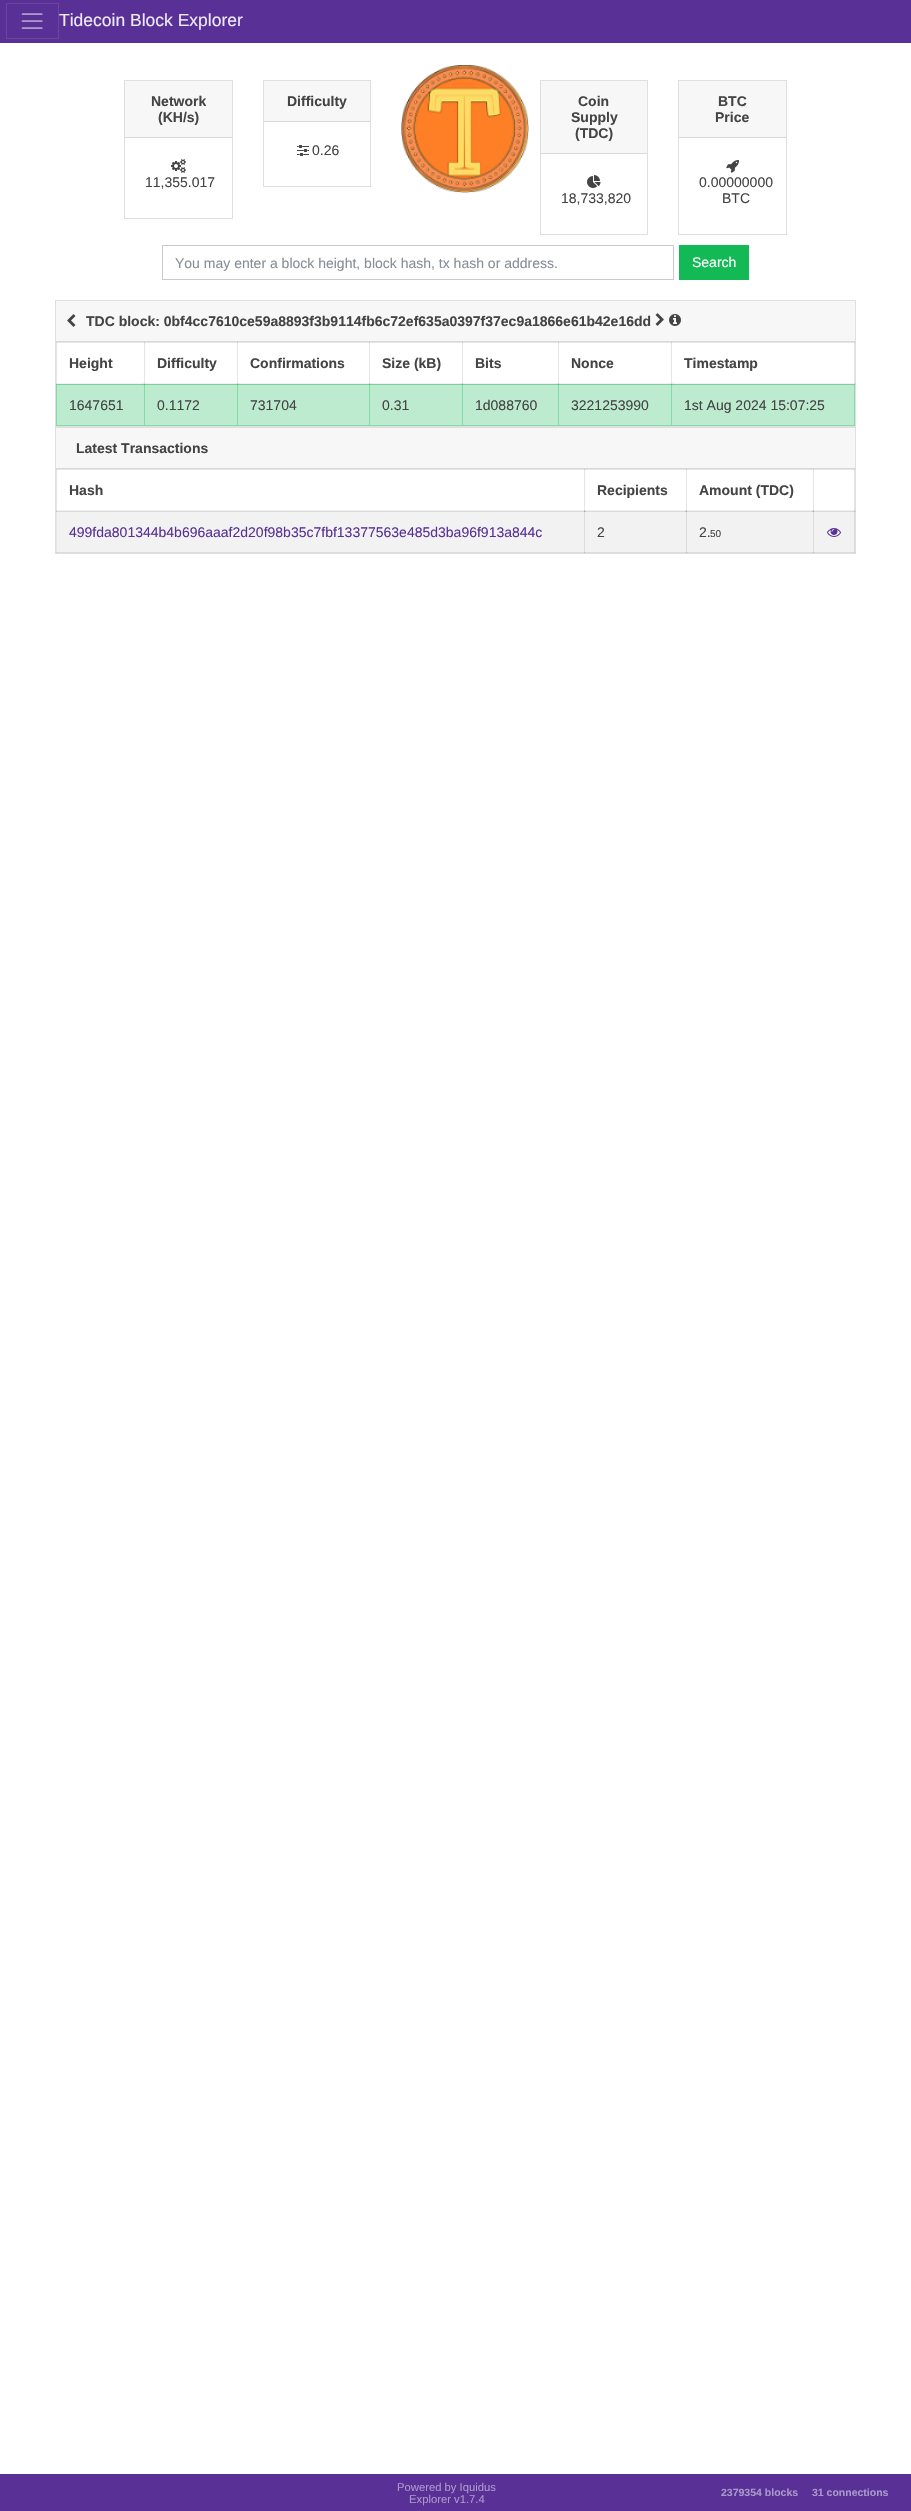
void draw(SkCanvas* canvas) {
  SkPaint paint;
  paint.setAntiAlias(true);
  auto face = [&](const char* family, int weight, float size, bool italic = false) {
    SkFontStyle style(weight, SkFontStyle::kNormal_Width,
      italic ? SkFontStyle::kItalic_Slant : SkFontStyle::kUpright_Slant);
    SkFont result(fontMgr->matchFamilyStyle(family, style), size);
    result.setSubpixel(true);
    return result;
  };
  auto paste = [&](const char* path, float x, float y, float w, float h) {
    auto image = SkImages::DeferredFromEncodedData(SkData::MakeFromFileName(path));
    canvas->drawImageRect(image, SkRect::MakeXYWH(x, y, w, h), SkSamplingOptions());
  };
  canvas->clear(0xffffffff);
  {
    const struct { float x, y, w, h; SkColor color; } items[] = {
      {584, 469, 1, 43, 0xffe6e6e6},
      {686, 469, 1, 43, 0xffe6e6e6},
      {813, 469, 1, 43, 0xffe6e6e6},
      {56, 469, 1, 84, 0xffe6e6e6},
      {56, 511, 1, 1, 0xffd0d0d0},
      {56, 552, 1, 1, 0xffd0d0d0},
      {854, 469, 1, 43, 0xffe6e6e6},
      {144, 342, 1, 43, 0xffe6e6e6},
      {237, 342, 1, 43, 0xffe6e6e6},
      {369, 342, 1, 43, 0xffe6e6e6},
      {462, 342, 1, 43, 0xffe6e6e6},
      {558, 342, 1, 43, 0xffe6e6e6},
      {671, 342, 1, 43, 0xffe6e6e6},
      {56, 342, 1, 43, 0xffe6e6e6},
      {854, 342, 1, 43, 0xffe6e6e6},
      {0, 0, 911, 43, 0xff593196},
    };
    for (auto [x, y, w, h, color] : items) {
      paint.setColor(color);
      canvas->drawRect(SkRect::MakeXYWH(x, y, w, h), paint);
    }
  }
  paint.setStroke(true);
  paint.setStrokeWidth(1);
  paint.setColor(0xff6a46a1);
  canvas->drawRect(SkRect::MakeXYWH(6.5f, 3.5f, 52, 35), paint);
  paste("img/1.png", 21, 13, 22, 16);
  paint.setColor(0xffdfdfdf);
  canvas->drawRect(SkRect::MakeXYWH(124.5f, 80.5f, 108, 138), paint);
  paint.setStroke(false);
  paint.setColor(0xfff7f7f7);
  canvas->drawRect(SkRect::MakeXYWH(125, 81, 107, 56), paint);
  paint.setColor(0xffd8d8d8);
  canvas->drawRect(SkRect::MakeXYWH(125, 137, 107, 1), paint);
  paste("img/2.png", 171, 159, 15, 14);
  paint.setStroke(true);
  paint.setColor(0xffdfdfdf);
  canvas->drawRect(SkRect::MakeXYWH(263.5f, 80.5f, 107, 106), paint);
  paint.setStroke(false);
  paint.setColor(0xfff7f7f7);
  canvas->drawRect(SkRect::MakeXYWH(264, 81, 106, 40), paint);
  paint.setColor(0xffd8d8d8);
  canvas->drawRect(SkRect::MakeXYWH(264, 121, 106, 1), paint);
  paste("img/3.png", 297, 145, 12, 11);
  paste("img/4.png", 401, 65, 128, 128);
  paint.setStroke(true);
  paint.setColor(0xffdfdfdf);
  canvas->drawRect(SkRect::MakeXYWH(540.5f, 80.5f, 107, 154), paint);
  paint.setStroke(false);
  paint.setColor(0xfff7f7f7);
  canvas->drawRect(SkRect::MakeXYWH(541, 81, 106, 72), paint);
  paint.setColor(0xffd8d8d8);
  canvas->drawRect(SkRect::MakeXYWH(541, 153, 106, 1), paint);
  paste("img/5.png", 587, 175, 14, 13);
  paint.setStroke(true);
  paint.setColor(0xffdfdfdf);
  canvas->drawRect(SkRect::MakeXYWH(678.5f, 80.5f, 108, 154), paint);
  paint.setStroke(false);
  paint.setColor(0xfff7f7f7);
  canvas->drawRect(SkRect::MakeXYWH(679, 81, 107, 56), paint);
  paint.setColor(0xffd8d8d8);
  canvas->drawRect(SkRect::MakeXYWH(679, 137, 107, 1), paint);
  paste("img/6.png", 726, 160, 13, 13);
  paint.setStroke(true);
  paint.setColor(0xffcbc8d0);
  canvas->drawRect(SkRect::MakeXYWH(162.5f, 245.5f, 511, 34), paint);
  paint.setStroke(false);
  paint.setColor(0xff13b955);
  canvas->drawRect(SkRect::MakeXYWH(679, 245, 70, 35), paint);
  paint.setStroke(true);
  paint.setColor(0xffdfdfdf);
  canvas->drawRect(SkRect::MakeXYWH(55.5f, 300.5f, 800, 126), paint);
  paint.setStroke(false);
  paint.setColor(0xfff7f7f7);
  canvas->drawRect(SkRect::MakeXYWH(56, 301, 799, 40), paint);
  paint.setColor(0xffd8d8d8);
  canvas->drawRect(SkRect::MakeXYWH(56, 341, 799, 1), paint);
  paste("img/7.png", 67, 314, 9, 13);
  paste("img/8.png", 655, 313, 9, 13);
  paste("img/9.png", 669, 314, 12, 12);
  {
    const struct { float x, y, w, h; SkColor color; } items[] = {
      {56, 342, 799, 1, 0xffe6e6e6},
      {144, 342, 1, 1, 0xffc6c6c6},
      {237, 342, 1, 1, 0xffc6c6c6},
      {369, 342, 1, 1, 0xffc6c6c6},
      {462, 342, 1, 1, 0xffc6c6c6},
      {558, 342, 1, 1, 0xffc6c6c6},
      {671, 342, 1, 1, 0xffc6c6c6},
      {56, 342, 1, 1, 0xffd0d0d0},
      {854, 342, 1, 1, 0xffd0d0d0},
      {671, 384, 184, 1, 0xff84dba7},
      {57, 385, 797, 40, 0xffbdebcf},
      {854, 384, 1, 42, 0xff84dba7},
      {671, 425, 184, 1, 0xff84dba7},
      {671, 384, 1, 42, 0xff84dba7},
      {558, 384, 114, 1, 0xff84dba7},
      {671, 384, 1, 1, 0xff77c697},
      {854, 384, 1, 1, 0xff7dd09f},
      {671, 383, 185, 2, 0x0d000000},
      {558, 425, 114, 1, 0xff84dba7},
      {558, 384, 1, 42, 0xff84dba7},
      {462, 384, 97, 1, 0xff84dba7},
      {558, 384, 1, 1, 0xff77c697},
      {557, 383, 116, 2, 0x0d000000},
      {462, 425, 97, 1, 0xff84dba7},
      {462, 384, 1, 42, 0xff84dba7},
      {369, 384, 94, 1, 0xff84dba7},
      {462, 384, 1, 1, 0xff77c697},
      {461, 383, 98, 2, 0x0d000000},
      {369, 425, 94, 1, 0xff84dba7},
      {369, 384, 1, 42, 0xff84dba7},
      {237, 384, 133, 1, 0xff84dba7},
      {369, 384, 1, 1, 0xff77c697},
      {369, 383, 94, 2, 0x0d000000},
      {237, 425, 133, 1, 0xff84dba7},
      {237, 384, 1, 42, 0xff84dba7},
      {144, 384, 94, 1, 0xff84dba7},
      {237, 384, 1, 1, 0xff77c697},
      {237, 383, 134, 2, 0x0d000000},
      {144, 425, 94, 1, 0xff84dba7},
      {144, 384, 1, 42, 0xff84dba7},
      {56, 384, 89, 1, 0xff84dba7},
      {144, 384, 1, 1, 0xff77c697},
      {143, 383, 96, 2, 0x0d000000},
      {56, 425, 89, 1, 0xff84dba7},
      {56, 384, 1, 42, 0xff84dba7},
      {56, 384, 1, 1, 0xff7dd09f},
      {56, 383, 89, 2, 0x0d000000},
    };
    for (auto [x, y, w, h, color] : items) {
      paint.setColor(color);
      canvas->drawRect(SkRect::MakeXYWH(x, y, w, h), paint);
    }
  }
  paint.setStroke(true);
  paint.setColor(0xffdfdfdf);
  canvas->drawRect(SkRect::MakeXYWH(55.5f, 427.5f, 800, 126), paint);
  paint.setStroke(false);
  {
    const struct { float x, y, w, h; SkColor color; } items[] = {
      {56, 428, 799, 40, 0xfff7f7f7},
      {56, 468, 799, 1, 0xffd8d8d8},
      {56, 469, 799, 1, 0xffe6e6e6},
      {584, 469, 1, 1, 0xffc6c6c6},
      {686, 469, 1, 1, 0xffc6c6c6},
      {813, 469, 1, 1, 0xffc6c6c6},
      {56, 469, 1, 1, 0xffd0d0d0},
      {854, 469, 1, 1, 0xffd0d0d0},
      {57, 511, 528, 1, 0xffe6e6e6},
      {57, 512, 797, 40, 0xfff2f2f2},
      {584, 511, 1, 42, 0xffdbdbdb},
      {584, 511, 103, 1, 0xffe6e6e6},
      {686, 511, 1, 42, 0xffdbdbdb},
      {686, 511, 128, 1, 0xffe6e6e6},
      {813, 511, 1, 42, 0xffdbdbdb},
      {813, 511, 42, 1, 0xffe6e6e6},
      {813, 511, 1, 1, 0xffb3b3b3},
      {57, 552, 798, 1, 0xffdbdbdb},
      {854, 511, 1, 42, 0xffdbdbdb},
      {854, 511, 1, 1, 0xffc6c6c6},
      {812, 510, 44, 2, 0x0d000000},
      {686, 511, 1, 1, 0xffb3b3b3},
      {685, 510, 129, 2, 0x0d000000},
      {584, 511, 1, 1, 0xffb3b3b3},
      {584, 510, 103, 2, 0x0d000000},
      {56, 510, 530, 2, 0x0d000000},
      {584, 552, 1, 1, 0xffbcbcbc},
      {686, 552, 1, 1, 0xffbcbcbc},
      {813, 552, 1, 1, 0xffbcbcbc},
      {854, 552, 1, 1, 0xffc6c6c6},
    };
    for (auto [x, y, w, h, color] : items) {
      paint.setColor(color);
      canvas->drawRect(SkRect::MakeXYWH(x, y, w, h), paint);
    }
  }
  paste("img/10.png", 827, 528, 14, 9);
  paint.setColor(0xff593196);
  canvas->drawRect(SkRect::MakeXYWH(0, 2474, 911, 37), paint);
  auto f0 = face("Liberation Sans", 400, 17.5f);
  paint.setColor(0xffeeeaf5);
  canvas->drawString("Tidecoin Block Explorer", 59, 26, f0, paint);
  auto f1 = face("Liberation Sans", 700, 14);
  paint.setColor(0xff444444);
  canvas->drawString("Network", 151, 106, f1, paint);
  canvas->drawString("(KH/s)", 158, 122, f1, paint);
  auto f2 = face("Liberation Sans", 400, 14);
  canvas->drawString("11,355.017", 145, 187, f2, paint);
  canvas->drawString("Difficulty", 287, 106, f1, paint);
  canvas->drawString("0.26", 312, 155, f2, paint);
  {
    const struct { const char* s; float x, y; } items[] = {
      {"Coin", 578, 106},
      {"Supply", 571, 122},
      {"(TDC)", 575, 138},
    };
    for (auto [s, x, y] : items) {
      canvas->drawString(s, x, y, f1, paint);
    }
  }
  canvas->drawString("18,733,820", 561, 203, f2, paint);
  canvas->drawString("BTC", 718, 106, f1, paint);
  canvas->drawString("Price", 715, 122, f1, paint);
  canvas->drawString("0.00000000", 699, 187, f2, paint);
  canvas->drawString("BTC", 722, 203, f2, paint);
  paint.setColor(0xff868e96);
  canvas->drawString("You may enter a block height, block hash, tx hash or address.", 175, 268, f2, paint);
  paint.setColor(0xffffffff);
  canvas->drawString("Search", 692, 267, f2, paint);
  paint.setColor(0xff444444);
  {
    const struct { const char* s; float x, y; } items[] = {
      {"TDC block: 0bf4cc7610ce59a8893f3b9114fb6c72ef635a0397f37ec9a1866e61b42e16dd", 86, 326},
      {"Height", 69, 368},
      {"Difficulty", 157, 368},
      {"Confirmations", 250, 368},
      {"Size (kB)", 382, 368},
      {"Bits", 475, 368},
      {"Nonce", 571, 368},
      {"Timestamp", 684, 368},
    };
    for (auto [s, x, y] : items) {
      canvas->drawString(s, x, y, f1, paint);
    }
  }
  {
    const struct { const char* s; float x, y; } items[] = {
      {"1647651", 69, 410},
      {"0.1172", 157, 410},
      {"731704", 250, 410},
      {"0.31", 382, 410},
      {"1d088760", 475, 410},
      {"3221253990", 571, 410},
      {"1st Aug 2024 15:07:25", 684, 410},
    };
    for (auto [s, x, y] : items) {
      canvas->drawString(s, x, y, f2, paint);
    }
  }
  {
    const struct { const char* s; float x, y; } items[] = {
      {"Latest Transactions", 76, 453},
      {"Hash", 69, 495},
      {"Recipients", 597, 495},
      {"Amount (TDC)", 699, 495},
    };
    for (auto [s, x, y] : items) {
      canvas->drawString(s, x, y, f1, paint);
    }
  }
  paint.setColor(0xff593196);
  canvas->drawString("499fda801344b4b696aaaf2d20f98b35c7fbf13377563e485d3ba96f913a844c", 69, 537, f2, paint);
  paint.setColor(0xff444444);
  canvas->drawString("2", 597, 537, f2, paint);
  canvas->drawString("2.", 699, 537, f2, paint);
  auto f3 = face("Liberation Sans", 400, 10);
  canvas->drawString("50", 710, 537, f3, paint);
  auto f4 = face("Liberation Sans", 400, 11.25f);
  paint.setColor(0xffac98cb);
  canvas->drawString("Powered by Iquidus", 397, 2491, f4, paint);
  canvas->drawString("Explorer v1.7.4", 409, 2503, f4, paint);
  auto f5 = face("Liberation Sans", 700, 10.5f);
  canvas->drawString("2379354 blocks", 721, 2496, f5, paint);
  canvas->drawString("31 connections", 812, 2496, f5, paint);
}
